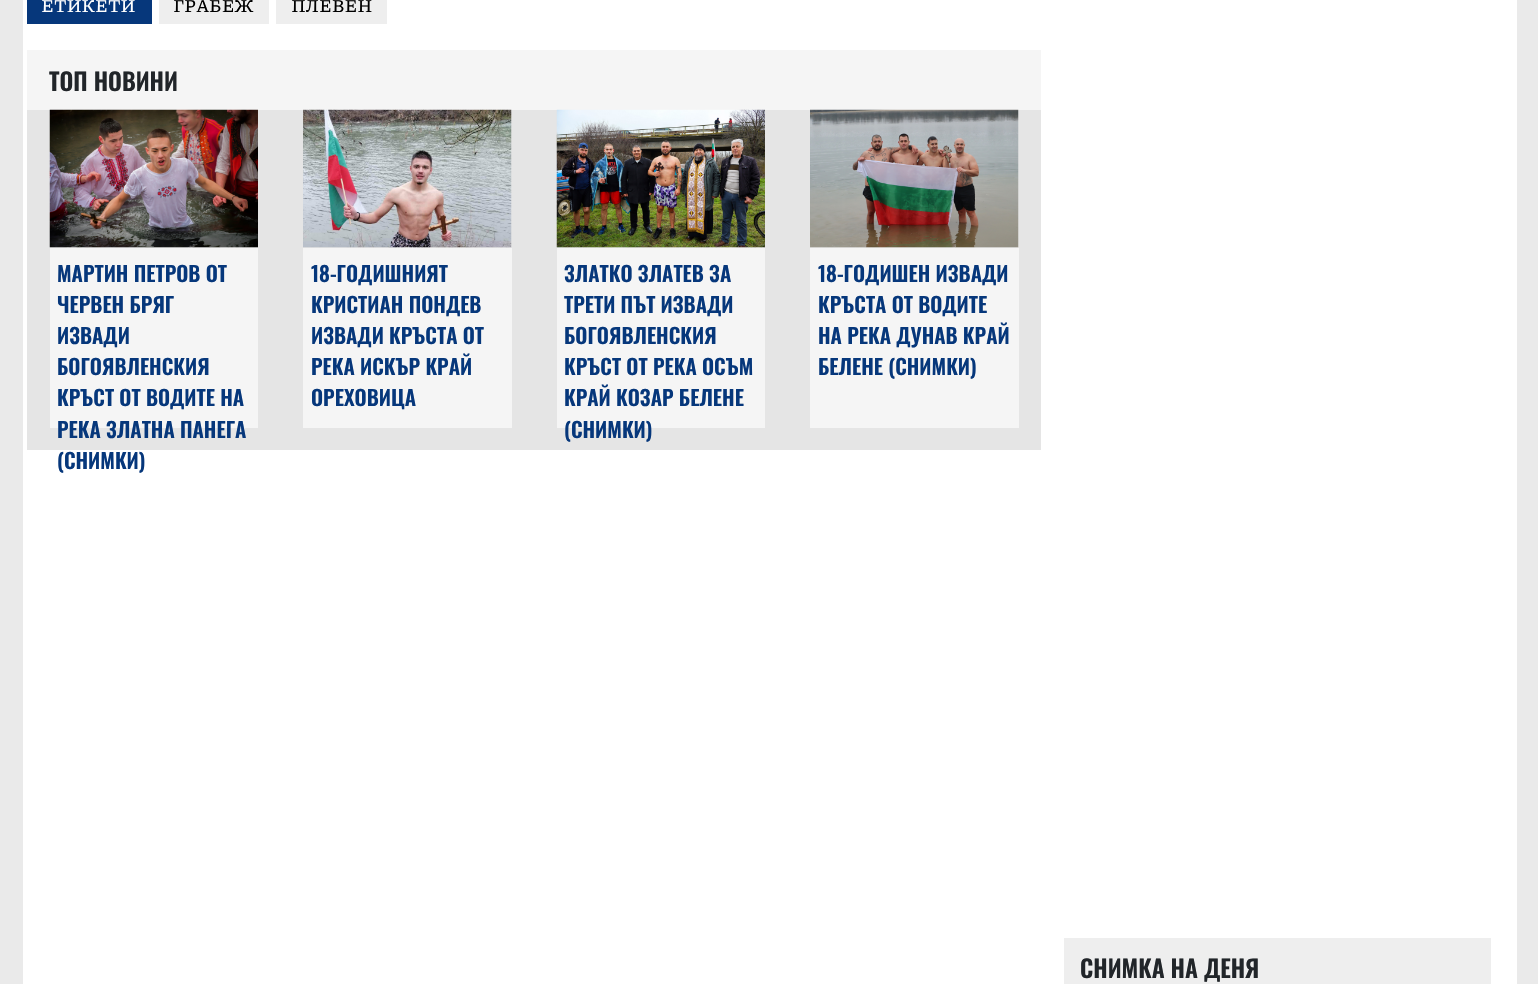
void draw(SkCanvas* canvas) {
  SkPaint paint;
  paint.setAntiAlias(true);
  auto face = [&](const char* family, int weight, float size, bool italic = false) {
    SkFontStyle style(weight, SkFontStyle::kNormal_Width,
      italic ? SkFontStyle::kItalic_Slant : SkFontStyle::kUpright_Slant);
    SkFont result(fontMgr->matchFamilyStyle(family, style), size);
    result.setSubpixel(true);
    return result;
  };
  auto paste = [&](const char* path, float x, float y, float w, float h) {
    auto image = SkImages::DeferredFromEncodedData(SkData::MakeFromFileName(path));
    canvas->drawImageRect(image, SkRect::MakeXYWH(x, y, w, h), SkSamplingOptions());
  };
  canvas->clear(0xffeaeaea);
  {
    const struct { float x, y, w, h; SkColor color; } items[] = {
      {23, 0, 1494, 984, 0xffffffff},
      {27, 0, 125, 24, 0xff06377b},
      {159, 0, 110, 24, 0xffeeeeee},
      {276, 0, 111, 24, 0xffeeeeee},
      {27, 110, 1014, 340, 0xffe5e5e5},
      {27, 50, 1014, 60, 0xfff5f5f5},
    };
    for (auto [x, y, w, h, color] : items) {
      paint.setColor(color);
      canvas->drawRect(SkRect::MakeXYWH(x, y, w, h), paint);
    }
  }
  paste("img/1.png", 49, 109, 209, 139);
  canvas->drawRect(SkRect::MakeXYWH(50, 248, 208, 180), paint);
  paste("img/2.png", 303, 109, 209, 139);
  canvas->drawRect(SkRect::MakeXYWH(303, 248, 209, 180), paint);
  paste("img/3.png", 556, 109, 209, 139);
  canvas->drawRect(SkRect::MakeXYWH(557, 248, 208, 180), paint);
  paste("img/4.png", 810, 109, 209, 139);
  canvas->drawRect(SkRect::MakeXYWH(810, 248, 209, 180), paint);
  paint.setColor(0xffeeeeee);
  canvas->drawRect(SkRect::MakeXYWH(1064, 938, 427, 46), paint);
  auto f0 = face("Piazzolla", 100, 18);
  paint.setColor(0xffffffff);
  canvas->drawString("ЕТИКЕТИ", 41, 12, f0, paint);
  paint.setColor(0xff000000);
  canvas->drawString("ГРАБЕЖ", 173, 12, f0, paint);
  canvas->drawString("ПЛЕВЕН", 291, 12, f0, paint);
  auto f1 = face("Oswald", 600, 24);
  paint.setColor(0xff212529);
  canvas->drawString("ТОП НОВИНИ", 49, 91, f1, paint);
  auto f2 = face("Oswald", 600, 21);
  paint.setColor(0xff06377b);
  {
    const struct { const char* s; float x, y; } items[] = {
      {"МАРТИН ПЕТРОВ ОТ", 57, 282},
      {"ЧЕРВЕН БРЯГ", 57, 313},
      {"ИЗВАДИ", 57, 344},
      {"БОГОЯВЛЕНСКИЯ", 57, 375},
      {"КРЪСТ ОТ ВОДИТЕ НА", 57, 406},
      {"РЕКА ЗЛАТНА ПАНЕГА", 57, 438},
      {"(СНИМКИ)", 57, 469},
      {"18-ГОДИШНИЯТ", 311, 282},
      {"КРИСТИАН ПОНДЕВ", 311, 313},
      {"ИЗВАДИ КРЪСТА ОТ", 311, 344},
      {"РЕКА ИСКЪР КРАЙ", 311, 375},
      {"ОРЕХОВИЦА", 311, 406},
      {"ЗЛАТКО ЗЛАТЕВ ЗА", 564, 282},
      {"ТРЕТИ ПЪТ ИЗВАДИ", 564, 313},
      {"БОГОЯВЛЕНСКИЯ", 564, 344},
      {"КРЪСТ ОТ РЕКА ОСЪМ", 564, 375},
      {"КРАЙ КОЗАР БЕЛЕНЕ", 564, 406},
      {"(СНИМКИ)", 564, 438},
      {"18-ГОДИШЕН ИЗВАДИ", 818, 282},
      {"КРЪСТА ОТ ВОДИТЕ", 818, 313},
      {"НА РЕКА ДУНАВ КРАЙ", 818, 344},
      {"БЕЛЕНЕ (СНИМКИ)", 818, 375},
    };
    for (auto [s, x, y] : items) {
      canvas->drawString(s, x, y, f2, paint);
    }
  }
  paint.setColor(0xff212529);
  canvas->drawString("СНИМКА НА ДЕНЯ", 1080, 978, f1, paint);
}
